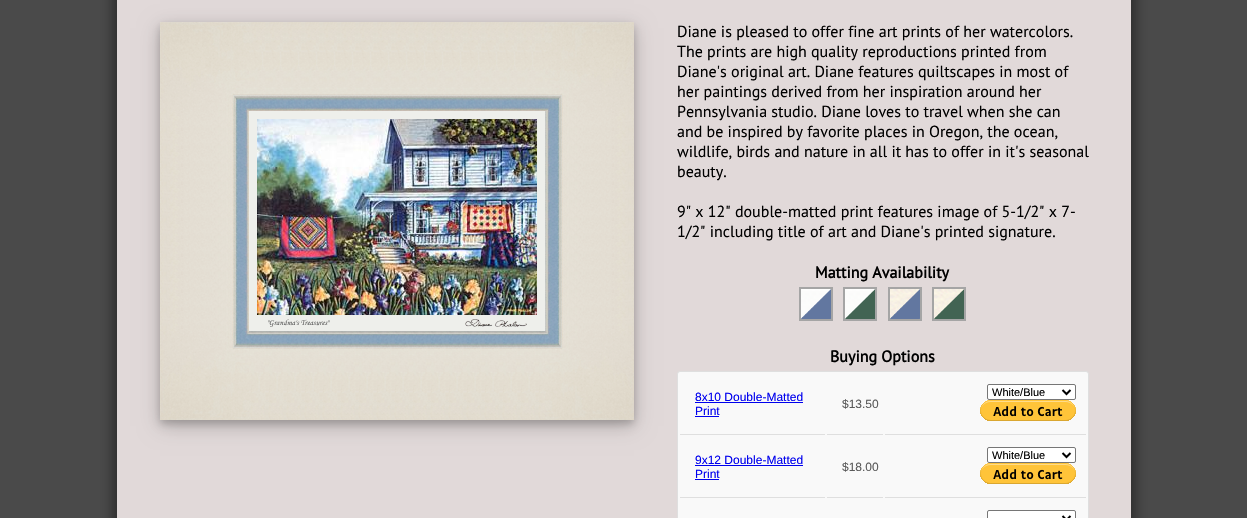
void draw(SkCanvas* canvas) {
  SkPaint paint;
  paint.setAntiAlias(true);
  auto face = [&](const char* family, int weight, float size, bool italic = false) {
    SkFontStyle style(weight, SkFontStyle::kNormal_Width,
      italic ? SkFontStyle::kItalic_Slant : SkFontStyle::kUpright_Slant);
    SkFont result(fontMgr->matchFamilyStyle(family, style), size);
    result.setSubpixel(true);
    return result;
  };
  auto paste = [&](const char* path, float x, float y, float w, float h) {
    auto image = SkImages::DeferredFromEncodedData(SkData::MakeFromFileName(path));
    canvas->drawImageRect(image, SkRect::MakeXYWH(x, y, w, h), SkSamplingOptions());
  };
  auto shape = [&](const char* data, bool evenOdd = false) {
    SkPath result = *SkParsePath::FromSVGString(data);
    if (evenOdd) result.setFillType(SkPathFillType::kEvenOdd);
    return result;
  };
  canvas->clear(0xff4a4a4a);
  paint.setColor(0xff2e2e2e);
  paint.setMaskFilter(SkMaskFilter::MakeBlur(kNormal_SkBlurStyle, 6));
  canvas->drawRect(SkRect::MakeXYWH(112, -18, 1014, 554), paint);
  paint.setMaskFilter(nullptr);
  paint.setMaskFilter(SkMaskFilter::MakeBlur(kNormal_SkBlurStyle, 6));
  canvas->drawRect(SkRect::MakeXYWH(122, -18, 1014, 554), paint);
  paint.setMaskFilter(nullptr);
  paint.setColor(0xffe1d9d9);
  canvas->drawRect(SkRect::MakeXYWH(117, 0, 1014, 518), paint);
  paint.setColor(0x30000000);
  paint.setMaskFilter(SkMaskFilter::MakeBlur(kNormal_SkBlurStyle, 10));
  canvas->drawRect(SkRect::MakeXYWH(160, 28, 474, 398), paint);
  paint.setMaskFilter(nullptr);
  paint.setColor(0x33000000);
  paint.setMaskFilter(SkMaskFilter::MakeBlur(kNormal_SkBlurStyle, 4));
  canvas->drawRect(SkRect::MakeXYWH(160, 26, 474, 398), paint);
  paint.setMaskFilter(nullptr);
  paste("img/1.png", 160, 22, 89, 89);
  paste("img/2.png", 249, 22, 296, 89);
  paste("img/3.png", 545, 22, 89, 89);
  paste("img/4.png", 160, 111, 89, 220);
  paint.setColor(0xffeeefeb);
  canvas->drawRect(SkRect::MakeXYWH(249, 111, 296, 8), paint);
  canvas->drawRect(SkRect::MakeXYWH(249, 119, 8, 212), paint);
  paste("img/5.png", 257, 119, 280, 196);
  canvas->drawRect(SkRect::MakeXYWH(537, 119, 8, 196), paint);
  canvas->drawRect(SkRect::MakeXYWH(257, 315, 288, 16), paint);
  paste("img/6.png", 465, 319, 62, 8);
  paste("img/7.png", 545, 111, 89, 220);
  paste("img/8.png", 160, 331, 89, 89);
  paste("img/9.png", 249, 331, 296, 89);
  paste("img/10.png", 545, 331, 89, 89);
  paint.setStroke(true);
  paint.setStrokeWidth(2);
  paint.setColor(0xffa5a5a5);
  canvas->drawRect(SkRect::MakeXYWH(800, 288, 32, 32), paint);
  canvas->drawRect(SkRect::MakeXYWH(844, 288, 32, 32), paint);
  canvas->drawRect(SkRect::MakeXYWH(889, 288, 32, 32), paint);
  canvas->drawRect(SkRect::MakeXYWH(933, 288, 32, 32), paint);
  paste("img/11.png", 801, 289, 30, 30);
  paste("img/12.png", 845, 289, 30, 30);
  paste("img/13.png", 890, 289, 30, 30);
  paste("img/14.png", 934, 289, 30, 30);
  paint.setStroke(false);
  paint.setColor(0xfff9f9f9);
  canvas->drawRoundRect(SkRect::MakeXYWH(677.5f, 371.5f, 411, 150), 2.5f, 2.5f, paint);
  paint.setStroke(true);
  paint.setStrokeWidth(1);
  paint.setColor(0xffdfdfdf);
  canvas->drawRoundRect(SkRect::MakeXYWH(677.5f, 371.5f, 411, 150), 2.5f, 2.5f, paint);
  paint.setStroke(false);
  {
    const struct { float x, y, w, h; SkColor color; } items[] = {
      {680, 434, 145, 1, 0xffdfdfdf},
      {695, 402, 108, 1, 0xff0000ee},
      {695, 416, 24, 1, 0xff0000ee},
      {827, 434, 56, 1, 0xffdfdfdf},
      {885, 434, 201, 1, 0xffdfdfdf},
    };
    for (auto [x, y, w, h, color] : items) {
      paint.setColor(color);
      canvas->drawRect(SkRect::MakeXYWH(x, y, w, h), paint);
    }
  }
  paint.setColor(0xffffffff);
  canvas->drawRoundRect(SkRect::MakeXYWH(987.5f, 384.5f, 88, 15), 1.5f, 1.5f, paint);
  paint.setStroke(true);
  paint.setColor(0xff767676);
  canvas->drawRoundRect(SkRect::MakeXYWH(987.5f, 384.5f, 88, 15), 1.5f, 1.5f, paint);
  paint.setStrokeWidth(2);
  paint.setColor(0xff000000);
  canvas->drawPath(shape("M1062.5 390L1066.5 394L1070.5 390"), paint);
  paste("img/15.png", 980, 400, 96, 21);
  paint.setStroke(false);
  {
    const struct { float x, y, w, h; SkColor color; } items[] = {
      {680, 497, 145, 1, 0xffdfdfdf},
      {695, 465, 108, 1, 0xff0000ee},
      {695, 479, 24, 1, 0xff0000ee},
      {827, 497, 56, 1, 0xffdfdfdf},
      {885, 497, 201, 1, 0xffdfdfdf},
    };
    for (auto [x, y, w, h, color] : items) {
      paint.setColor(color);
      canvas->drawRect(SkRect::MakeXYWH(x, y, w, h), paint);
    }
  }
  paint.setColor(0xffffffff);
  canvas->drawRoundRect(SkRect::MakeXYWH(987.5f, 447.5f, 88, 15), 1.5f, 1.5f, paint);
  paint.setStroke(true);
  paint.setStrokeWidth(1);
  paint.setColor(0xff767676);
  canvas->drawRoundRect(SkRect::MakeXYWH(987.5f, 447.5f, 88, 15), 1.5f, 1.5f, paint);
  paint.setStrokeWidth(2);
  paint.setColor(0xff000000);
  canvas->drawPath(shape("M1062.5 453L1066.5 457L1070.5 453"), paint);
  paste("img/15.png", 980, 463, 96, 21);
  paint.setStroke(false);
  paint.setColor(0xffffffff);
  canvas->drawRoundRect(SkRect::MakeXYWH(987.5f, 510.5f, 88, 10), 1.5f, 1.5f, paint);
  paint.setStroke(true);
  paint.setStrokeWidth(1);
  paint.setColor(0xff767676);
  canvas->drawRoundRect(SkRect::MakeXYWH(987.5f, 510.5f, 88, 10), 1.5f, 1.5f, paint);
  paint.setStrokeWidth(2);
  paint.setColor(0xff000000);
  canvas->drawPath(shape("M1062.5 516L1066.5 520L1070.5 516"), paint);
  auto f0 = face("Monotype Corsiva", 400, 8, true);
  paint.setStroke(false);
  paint.setColor(0xff5a5a5a);
  canvas->drawString("\"Grandma's Treasures\"", 267, 325, f0, paint);
  auto f1 = face("PT Sans", 400, 16);
  paint.setColor(0xff000000);
  {
    const struct { const char* s; float x, y; } items[] = {
      {"Diane is pleased to offer fine art prints of her watercolors.", 677, 37},
      {"The prints are high quality reproductions printed from", 677, 57},
      {"Diane's original art. Diane features quiltscapes in most of", 677, 77},
      {"her paintings derived from her inspiration around her", 677, 97},
      {"Pennsylvania studio. Diane loves to travel when she can", 677, 117},
      {"and be inspired by favorite places in Oregon, the ocean,", 677, 137},
      {"wildlife, birds and nature in all it has to offer in it's seasonal", 677, 157},
      {"beauty.", 677, 177},
      {"9\" x 12\" double-matted print features image of 5-1/2\" x 7-", 677, 217},
      {"1/2\" including title of art and Diane's printed signature.", 677, 237},
    };
    for (auto [s, x, y] : items) {
      canvas->drawString(s, x, y, f1, paint);
    }
  }
  auto f2 = face("PT Sans", 700, 16);
  canvas->drawString("Matting Availability", 815, 278, f2, paint);
  canvas->drawString("Buying Options", 830, 362, f2, paint);
  auto f3 = face("Liberation Sans", 400, 12);
  paint.setColor(0xff0000ee);
  canvas->drawString("8x10 Double-Matted", 695, 401, f3, paint);
  canvas->drawString("Print", 695, 415, f3, paint);
  paint.setColor(0xff5a5a5a);
  canvas->drawString("$13.50", 842, 408, f3, paint);
  auto f4 = face("Liberation Sans", 400, 11);
  paint.setColor(0xff000000);
  canvas->drawString("White/Blue", 992, 396, f4, paint);
  paint.setColor(0xff0000ee);
  canvas->drawString("9x12 Double-Matted", 695, 464, f3, paint);
  canvas->drawString("Print", 695, 478, f3, paint);
  paint.setColor(0xff5a5a5a);
  canvas->drawString("$18.00", 842, 471, f3, paint);
  paint.setColor(0xff000000);
  canvas->drawString("White/Blue", 992, 459, f4, paint);
}
